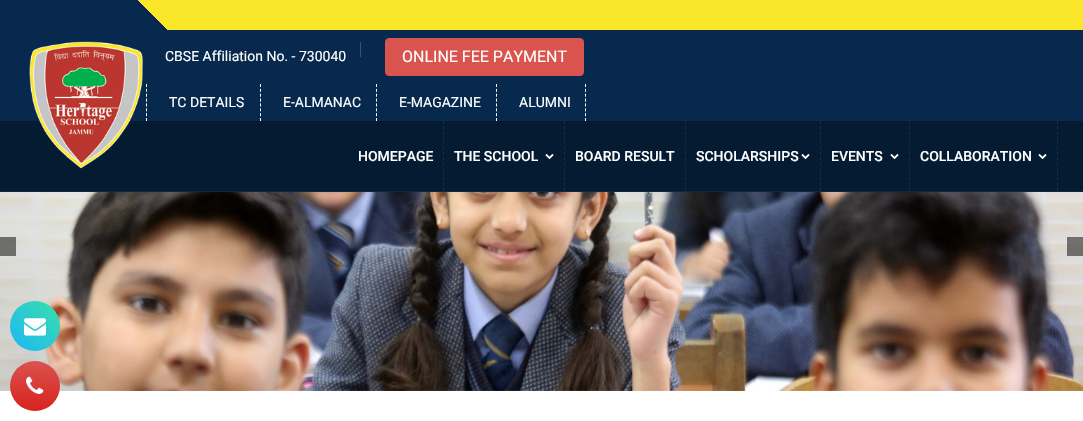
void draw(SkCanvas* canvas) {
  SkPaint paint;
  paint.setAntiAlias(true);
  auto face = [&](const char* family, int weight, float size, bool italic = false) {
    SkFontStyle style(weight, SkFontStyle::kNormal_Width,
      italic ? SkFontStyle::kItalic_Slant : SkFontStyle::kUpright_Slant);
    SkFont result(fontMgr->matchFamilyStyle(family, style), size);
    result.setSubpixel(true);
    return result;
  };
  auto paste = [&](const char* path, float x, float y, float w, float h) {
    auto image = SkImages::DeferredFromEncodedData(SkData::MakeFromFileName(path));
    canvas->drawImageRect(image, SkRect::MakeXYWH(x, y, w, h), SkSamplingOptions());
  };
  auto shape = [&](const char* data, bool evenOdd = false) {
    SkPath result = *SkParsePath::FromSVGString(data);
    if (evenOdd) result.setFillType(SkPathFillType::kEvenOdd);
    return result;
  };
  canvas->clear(0xffffffff);
  {
    const SkColor colors[] = {0xff07294d, 0xfffbe729};
    const float stops[] = {0.15f, 0.15f};
    const SkPoint ends[] = {{263, 293}, {820, -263}};
    paint.setShader(SkGradientShader::MakeLinear(ends, colors, stops, 2, SkTileMode::kClamp));
    paint.setAlpha(255);
  }
  canvas->drawRect(SkRect::MakeXYWH(0, 0, 1083, 30), paint);
  paint.setShader(nullptr);
  paint.setColor(0xff07294d);
  canvas->drawRect(SkRect::MakeXYWH(0, 30, 1083, 91), paint);
  paint.setColor(0xff395471);
  canvas->drawRect(SkRect::MakeXYWH(360, 42, 1, 15), paint);
  paint.setColor(0xffd9534f);
  canvas->drawRoundRect(SkRect::MakeXYWH(385.5f, 38.5f, 198, 37), 3.5f, 3.5f, paint);
  paint.setStroke(true);
  paint.setStrokeWidth(1);
  canvas->drawRoundRect(SkRect::MakeXYWH(385.5f, 38.5f, 198, 37), 3.5f, 3.5f, paint);
  paint.setColor(0xffffffff);
  paint.setPathEffect(SkDashPathEffect::Make({{3, 1.86f}}, 0));
  canvas->drawPath(shape("M146.5 84V121"), paint);
  paint.setPathEffect(nullptr);
  paint.setPathEffect(SkDashPathEffect::Make({{3, 1.86f}}, 0));
  canvas->drawPath(shape("M260.5 84V121"), paint);
  paint.setPathEffect(nullptr);
  paint.setPathEffect(SkDashPathEffect::Make({{3, 1.86f}}, 0));
  canvas->drawPath(shape("M376.5 84V121"), paint);
  paint.setPathEffect(nullptr);
  paint.setPathEffect(SkDashPathEffect::Make({{3, 1.86f}}, 0));
  canvas->drawPath(shape("M496.5 84V121"), paint);
  paint.setPathEffect(nullptr);
  paint.setPathEffect(SkDashPathEffect::Make({{3, 1.86f}}, 0));
  canvas->drawPath(shape("M585.5 84V121"), paint);
  paint.setPathEffect(nullptr);
  paint.setStroke(false);
  paint.setColor(0xff051b32);
  canvas->drawRect(SkRect::MakeXYWH(0, 121, 1083, 70), paint);
  paint.setColor(0xff12263c);
  canvas->drawRect(SkRect::MakeXYWH(0, 191, 1083, 1), paint);
  paste("img/1.png", 29, 41, 114, 128);
  paint.setStroke(true);
  paint.setColor(0xff0f2f50);
  paint.setPathEffect(SkDashPathEffect::Make({{3, 2.15f}}, 0));
  canvas->drawPath(shape("M443.5 121V191"), paint);
  paint.setPathEffect(nullptr);
  paint.setPathEffect(SkDashPathEffect::Make({{3, 2.15f}}, 0));
  canvas->drawPath(shape("M564.5 121V191"), paint);
  paint.setPathEffect(nullptr);
  paste("img/2.png", 545, 154, 9, 6);
  paint.setPathEffect(SkDashPathEffect::Make({{3, 2.15f}}, 0));
  canvas->drawPath(shape("M685.5 121V191"), paint);
  paint.setPathEffect(nullptr);
  paint.setPathEffect(SkDashPathEffect::Make({{3, 2.15f}}, 0));
  canvas->drawPath(shape("M820.5 121V191"), paint);
  paint.setPathEffect(nullptr);
  paste("img/2.png", 801, 154, 9, 6);
  paint.setPathEffect(SkDashPathEffect::Make({{3, 2.15f}}, 0));
  canvas->drawPath(shape("M909.5 121V191"), paint);
  paint.setPathEffect(nullptr);
  paste("img/2.png", 890, 154, 9, 6);
  paint.setPathEffect(SkDashPathEffect::Make({{3, 2.15f}}, 0));
  canvas->drawPath(shape("M1057.5 121V191"), paint);
  paint.setPathEffect(nullptr);
  paste("img/2.png", 1038, 154, 9, 6);
  paste("img/3.png", 0, 192, 1083, 199);
  paint.setStroke(false);
  paint.setColor(0x80000000);
  canvas->drawRect(SkRect::MakeXYWH(0, 237, 16, 19), paint);
  canvas->drawRect(SkRect::MakeXYWH(1067, 237, 16, 19), paint);
  {
    const SkColor colors[] = {0xff1ebbf0, 0xff39dfaa};
    const float stops[] = {0.08f, 1};
    const SkPoint ends[] = {{10, 351}, {60, 301}};
    paint.setShader(SkGradientShader::MakeLinear(ends, colors, stops, 2, SkTileMode::kClamp));
    paint.setAlpha(255);
  }
  canvas->drawCircle(35, 326, 25, paint);
  paste("img/4.png", 24, 318, 22, 18);
  {
    const SkColor colors[] = {0xffd9534f, 0xffd8231e};
    const float stops[] = {0, 1};
    const SkPoint ends[] = {{35, 361}, {35, 411}};
    paint.setShader(SkGradientShader::MakeLinear(ends, colors, stops, 2, SkTileMode::kClamp));
    paint.setAlpha(255);
  }
  canvas->drawCircle(35, 386, 25, paint);
  paste("img/5.png", 26, 376, 18, 18);
  auto f0 = face("Roboto", 400, 14);
  paint.setShader(nullptr);
  paint.setColor(0xffffffff);
  canvas->drawString("CBSE Affiliation No. - 730040", 165, 61, f0, paint);
  auto f1 = face("Roboto", 400, 16);
  canvas->drawString("ONLINE FEE PAYMENT", 402, 62, f1, paint);
  {
    const struct { const char* s; float x, y; } items[] = {
      {"TC DETAILS", 169, 107},
      {"E-ALMANAC", 283, 107},
      {"E-MAGAZINE", 399, 107},
      {"ALUMNI", 519, 107},
    };
    for (auto [s, x, y] : items) {
      canvas->drawString(s, x, y, f0, paint);
    }
  }
  auto f2 = face("Roboto", 500, 14);
  {
    const struct { const char* s; float x, y; } items[] = {
      {"HOMEPAGE", 358, 161},
      {"THE SCHOOL", 454, 161},
      {"BOARD RESULT", 575, 161},
      {"SCHOLARSHIPS", 696, 161},
      {"EVENTS", 831, 161},
      {"COLLABORATION", 920, 161},
    };
    for (auto [s, x, y] : items) {
      canvas->drawString(s, x, y, f2, paint);
    }
  }
}
